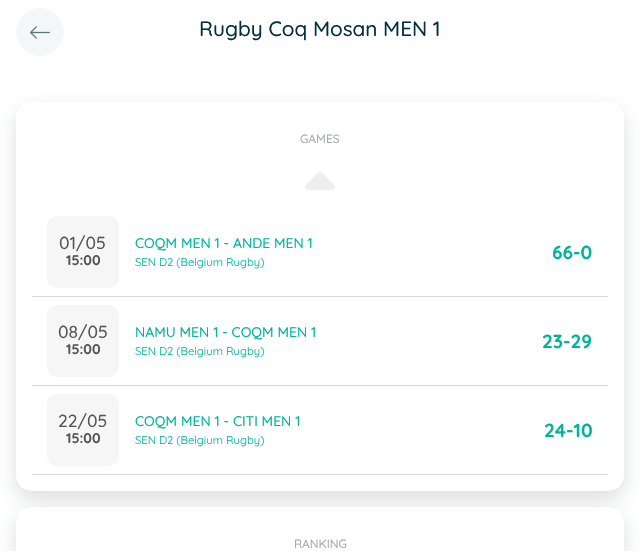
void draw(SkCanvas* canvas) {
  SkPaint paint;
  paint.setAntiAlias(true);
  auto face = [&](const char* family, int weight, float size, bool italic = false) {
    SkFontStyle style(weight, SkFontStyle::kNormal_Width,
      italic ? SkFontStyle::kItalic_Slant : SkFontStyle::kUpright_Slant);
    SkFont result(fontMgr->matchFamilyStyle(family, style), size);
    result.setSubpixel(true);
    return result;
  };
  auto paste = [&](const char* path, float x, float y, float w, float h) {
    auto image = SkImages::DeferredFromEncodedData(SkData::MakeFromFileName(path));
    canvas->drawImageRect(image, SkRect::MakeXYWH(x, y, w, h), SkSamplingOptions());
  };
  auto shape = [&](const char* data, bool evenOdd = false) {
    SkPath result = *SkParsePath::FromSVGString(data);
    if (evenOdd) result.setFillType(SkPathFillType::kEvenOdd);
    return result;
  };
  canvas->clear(0xffffffff);
  paint.setColor(0xfff4f7f7);
  canvas->drawCircle(40, 32, 23.5f, paint);
  paint.setStroke(true);
  paint.setStrokeWidth(1);
  canvas->drawCircle(40, 32, 23.5f, paint);
  paste("img/1.png", 30, 26, 20, 13);
  paint.setStroke(false);
  paint.setColor(0x33475c5d);
  paint.setMaskFilter(SkMaskFilter::MakeBlur(kNormal_SkBlurStyle, 10));
  canvas->drawRoundRect(SkRect::MakeXYWH(16, 110, 608, 389), 16, 16, paint);
  paint.setMaskFilter(nullptr);
  paint.setColor(0xffffffff);
  canvas->drawRoundRect(SkRect::MakeXYWH(16, 102, 608, 389), 16, 16, paint);
  paste("img/2.png", 305, 172, 30, 18);
  paint.setColor(0xffd9d9d9);
  canvas->drawRect(SkRect::MakeXYWH(32, 296, 576, 1), paint);
  paint.setColor(0xfff6f6f6);
  canvas->drawRoundRect(SkRect::MakeXYWH(47, 216, 72, 72), 10, 10, paint);
  paint.setColor(0xffd9d9d9);
  canvas->drawRect(SkRect::MakeXYWH(32, 385, 576, 1), paint);
  paint.setColor(0xfff6f6f6);
  canvas->drawRoundRect(SkRect::MakeXYWH(47, 305, 72, 72), 10, 10, paint);
  paint.setColor(0xffd9d9d9);
  canvas->drawRect(SkRect::MakeXYWH(32, 474, 576, 1), paint);
  paint.setColor(0xfff6f6f6);
  canvas->drawRoundRect(SkRect::MakeXYWH(47, 394, 72, 72), 10, 10, paint);
  paint.setColor(0x33475c5d);
  paint.setMaskFilter(SkMaskFilter::MakeBlur(kNormal_SkBlurStyle, 10));
  canvas->drawRoundRect(SkRect::MakeXYWH(16, 515, 608, 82), 16, 16, paint);
  paint.setMaskFilter(nullptr);
  paint.setColor(0xffffffff);
  canvas->drawPath(shape("M32 507H608C617 507 624 514 624 523V551H16V523C16 514 23 507 32 507Z"), paint);
  auto f0 = face("Quicksand", 500, 20.75f);
  paint.setColor(0xff022e3e);
  canvas->drawString("Rugby Coq Mosan MEN 1", 199, 36, f0, paint);
  auto f1 = face("Quicksand", 500, 12);
  paint.setColor(0xffa3adae);
  canvas->drawString("GAMES", 300, 143, f1, paint);
  auto f2 = face("Quicksand", 500, 17.5f);
  paint.setColor(0xff555555);
  canvas->drawString("01/05", 59, 249, f2, paint);
  auto f3 = face("Quicksand", 700, 14);
  canvas->drawString("15:00", 66, 265, f3, paint);
  auto f4 = face("Quicksand", 500, 14);
  paint.setColor(0xff00b49c);
  canvas->drawString("COQM MEN 1 - ANDE MEN 1", 135, 248, f4, paint);
  auto f5 = face("Quicksand", 400, 11.25f);
  canvas->drawString("SEN D2 (Belgium Rugby)", 135, 266, f5, paint);
  auto f6 = face("Quicksand", 700, 19);
  canvas->drawString("66-0", 552, 259, f6, paint);
  paint.setColor(0xff555555);
  canvas->drawString("08/05", 58, 338, f2, paint);
  canvas->drawString("15:00", 66, 354, f3, paint);
  paint.setColor(0xff00b49c);
  canvas->drawString("NAMU MEN 1 - COQM MEN 1", 135, 337, f4, paint);
  canvas->drawString("SEN D2 (Belgium Rugby)", 135, 355, f5, paint);
  canvas->drawString("23-29", 542, 348, f6, paint);
  paint.setColor(0xff555555);
  canvas->drawString("22/05", 58, 427, f2, paint);
  canvas->drawString("15:00", 66, 443, f3, paint);
  paint.setColor(0xff00b49c);
  canvas->drawString("COQM MEN 1 - CITI MEN 1", 135, 426, f4, paint);
  canvas->drawString("SEN D2 (Belgium Rugby)", 135, 444, f5, paint);
  canvas->drawString("24-10", 544, 437, f6, paint);
  paint.setColor(0xffa3adae);
  canvas->drawString("RANKING", 294, 548, f1, paint);
}
